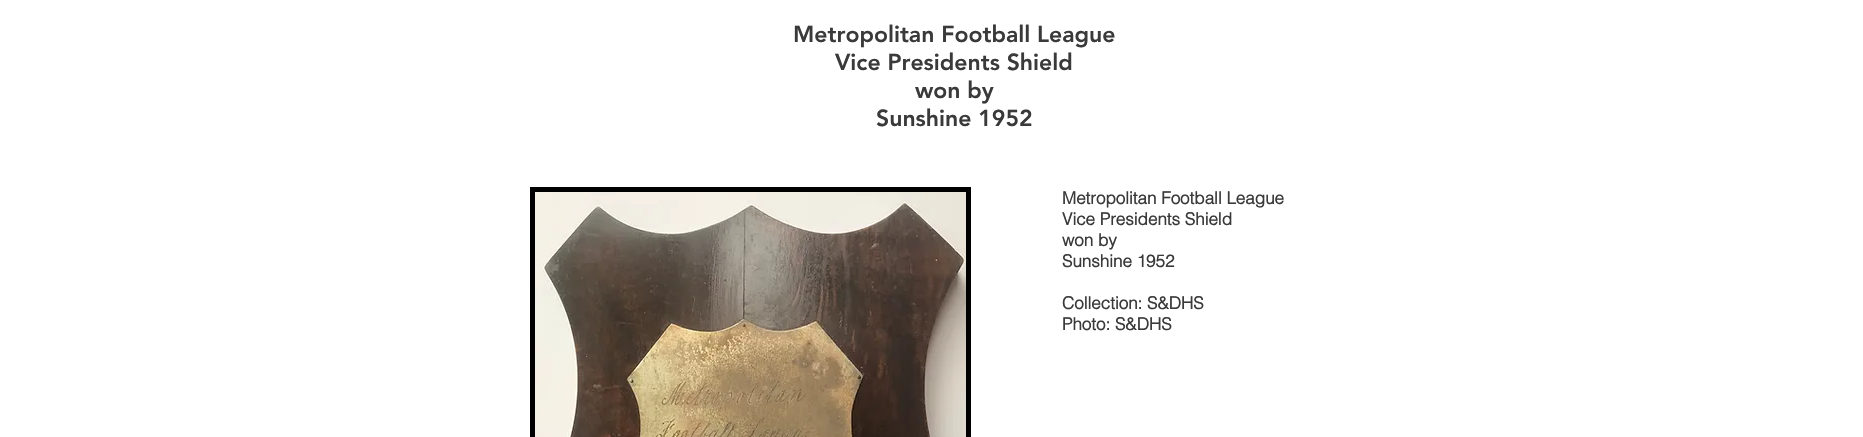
void draw(SkCanvas* canvas) {
  SkPaint paint;
  paint.setAntiAlias(true);
  auto face = [&](const char* family, int weight, float size, bool italic = false) {
    SkFontStyle style(weight, SkFontStyle::kNormal_Width,
      italic ? SkFontStyle::kItalic_Slant : SkFontStyle::kUpright_Slant);
    SkFont result(fontMgr->matchFamilyStyle(family, style), size);
    result.setSubpixel(true);
    return result;
  };
  auto paste = [&](const char* path, float x, float y, float w, float h) {
    auto image = SkImages::DeferredFromEncodedData(SkData::MakeFromFileName(path));
    canvas->drawImageRect(image, SkRect::MakeXYWH(x, y, w, h), SkSamplingOptions());
  };
  canvas->clear(0xffffffff);
  paint.setColor(0xff000000);
  canvas->drawRect(SkRect::MakeXYWH(530, 187, 441, 250), paint);
  paste("img/1.png", 535, 192, 431, 245);
  auto f0 = face("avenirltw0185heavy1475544", 900, 23);
  paint.setColor(0xff3b3a3a);
  {
    const struct { const char* s; float x, y; } items[] = {
      {"Metropolitan Football League", 793, 42},
      {"Vice Presidents Shield", 835, 70},
      {"won by", 915, 98},
      {"Sunshine 1952", 876, 126},
    };
    for (auto [s, x, y] : items) {
      canvas->drawString(s, x, y, f0, paint);
    }
  }
  auto f1 = face("helvetica", 700, 17);
  {
    const struct { const char* s; float x, y; } items[] = {
      {"Metropolitan Football League", 1062, 204},
      {"Vice Presidents Shield", 1062, 225},
      {"won by", 1062, 246},
      {"Sunshine 1952", 1062, 267},
      {"Collection: S&DHS", 1062, 309},
      {"Photo: S&DHS", 1062, 330},
    };
    for (auto [s, x, y] : items) {
      canvas->drawString(s, x, y, f1, paint);
    }
  }
}
